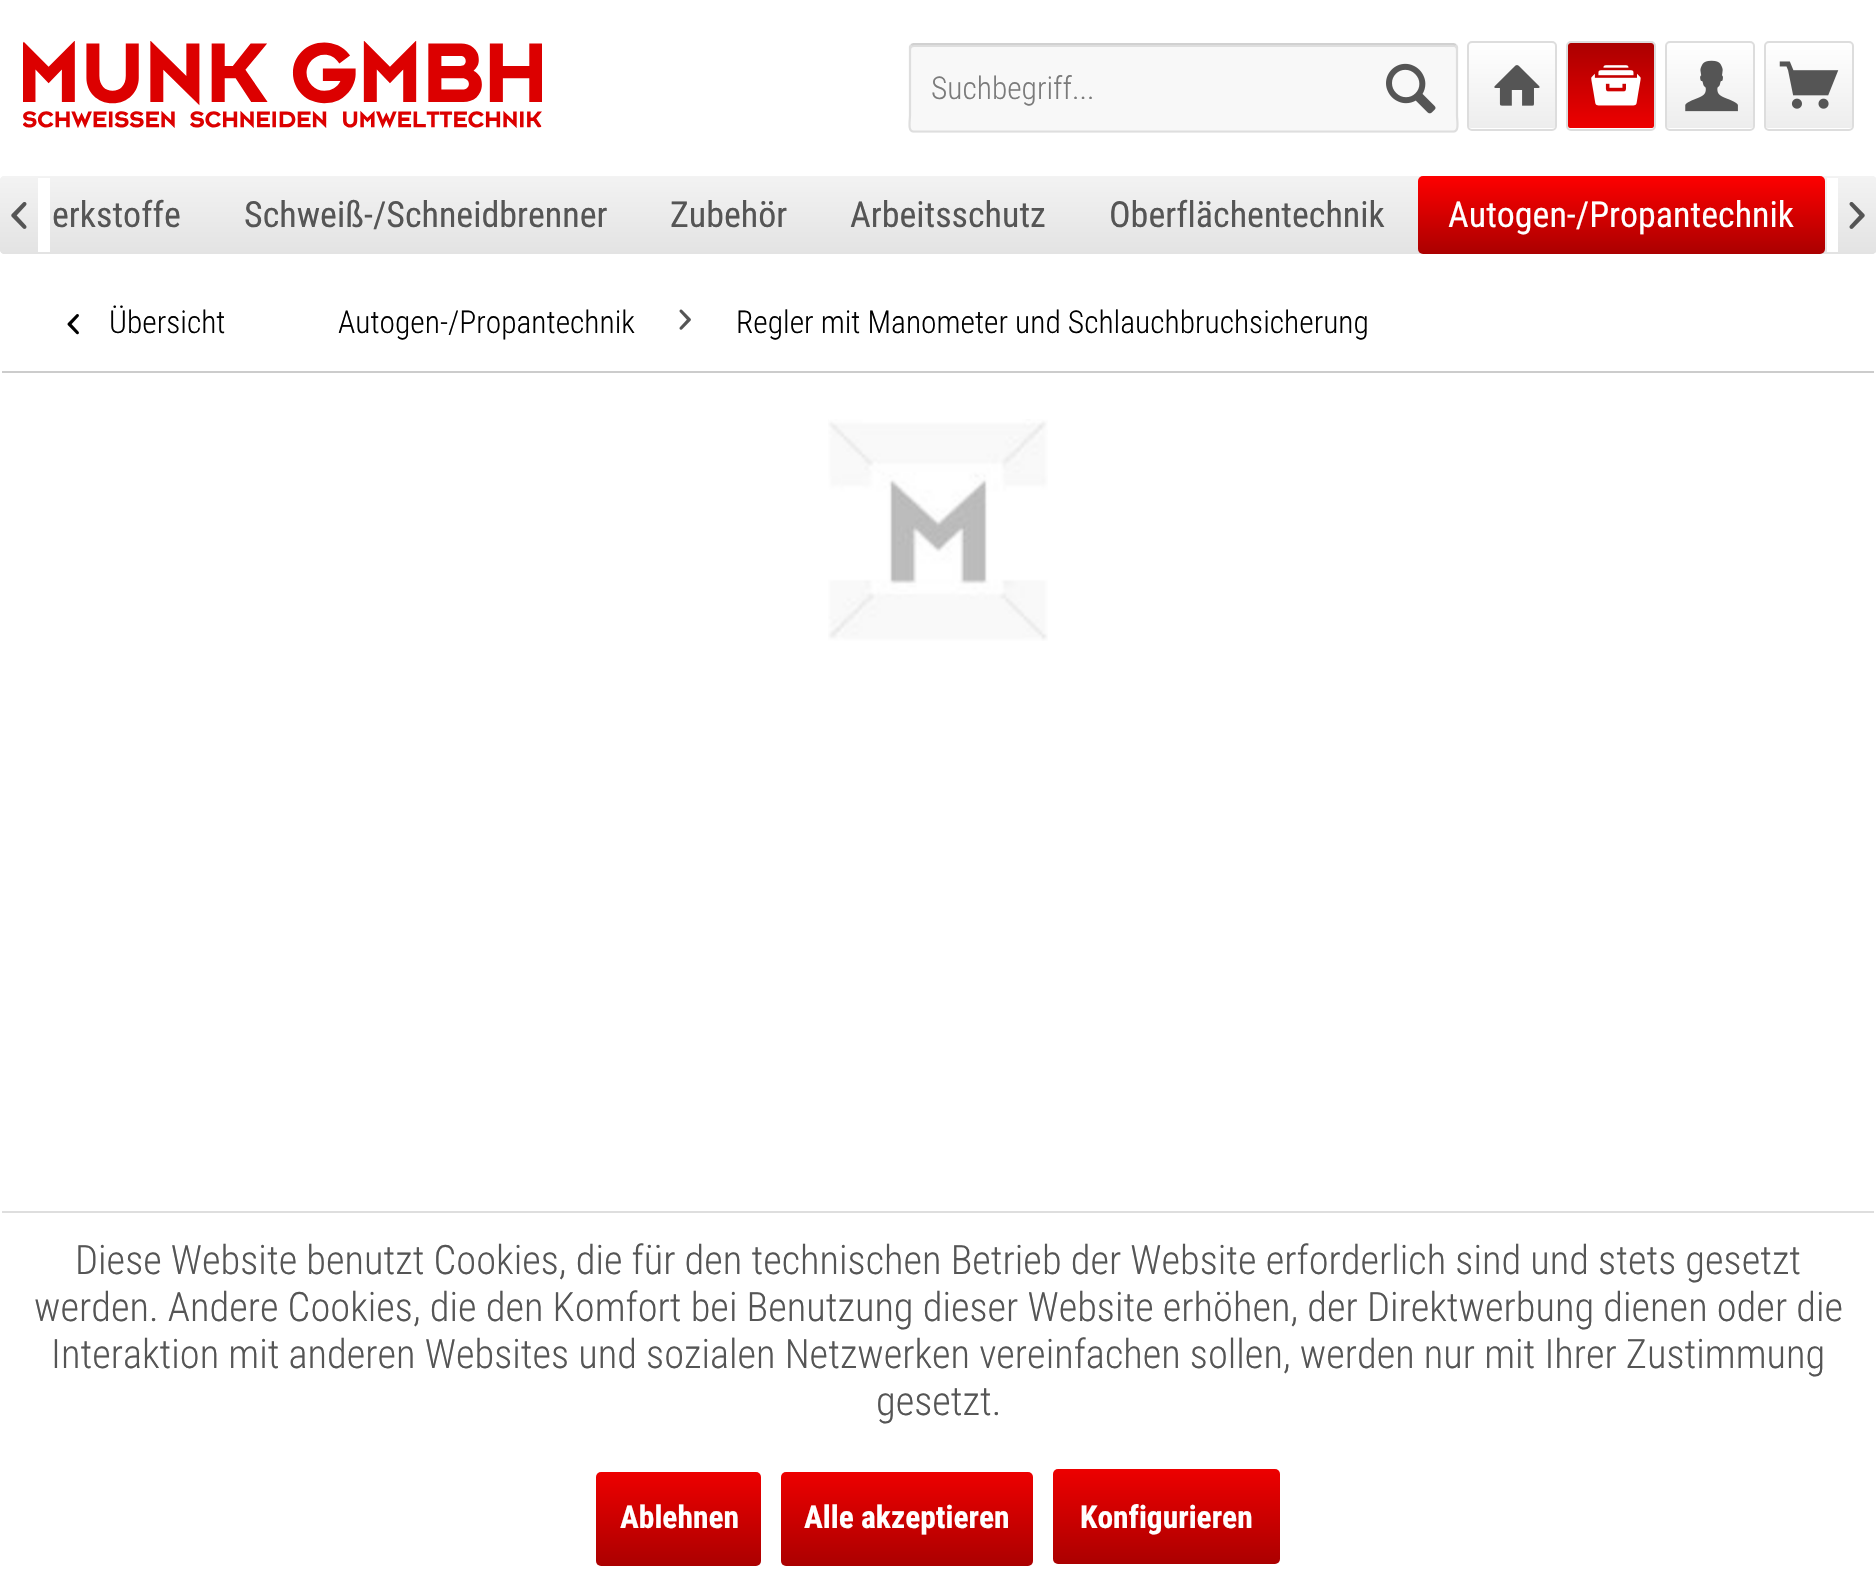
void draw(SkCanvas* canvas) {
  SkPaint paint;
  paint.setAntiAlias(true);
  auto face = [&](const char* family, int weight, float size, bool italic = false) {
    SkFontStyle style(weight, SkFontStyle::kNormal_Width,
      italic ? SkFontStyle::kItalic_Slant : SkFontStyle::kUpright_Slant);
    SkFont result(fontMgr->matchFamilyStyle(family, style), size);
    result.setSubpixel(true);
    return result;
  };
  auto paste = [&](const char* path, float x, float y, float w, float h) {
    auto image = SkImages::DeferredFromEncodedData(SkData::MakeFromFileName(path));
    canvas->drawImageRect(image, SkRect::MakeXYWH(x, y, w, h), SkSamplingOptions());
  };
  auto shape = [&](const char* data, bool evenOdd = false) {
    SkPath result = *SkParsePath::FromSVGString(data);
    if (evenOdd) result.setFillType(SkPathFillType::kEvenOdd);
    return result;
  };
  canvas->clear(0xffffffff);
  paste("img/1.png", 23, 41, 519, 87);
  paint.setColor(0xfff8f8f8);
  canvas->drawRoundRect(SkRect::MakeXYWH(909, 43, 549, 90), 5, 5, paint);
  paint.setColor(0xffdedede);
  canvas->drawPath(shape("M914 47H1454C1455 47 1456 48 1456 50V47C1456 46 1455 45 1454 45H913C912 45 911 46 911 47V50C911 48 912 47 914 47Z"), paint);
  paint.setStroke(true);
  paint.setStrokeWidth(2.2f);
  paint.setColor(0xffd1d1d1);
  canvas->drawPath(shape("M911 45L913.5 44H1453.5L1456 45"), paint);
  paint.setColor(0xffdedede);
  canvas->drawPath(shape("M1456 45L1457 47V115C1457 121 1459.5 131.5 1453.5 131.5H913.5C907.5 131.5 910 121 910 115V47L911 45"), paint);
  paste("img/2.png", 1386, 63, 50, 51);
  paint.setStroke(false);
  {
    const SkColor colors[] = {0xffffffff, 0xffededed};
    const float stops[] = {0, 1};
    const SkPoint ends[] = {{1512, 43}, {1512, 128}};
    paint.setShader(SkGradientShader::MakeLinear(ends, colors, stops, 2, SkTileMode::kClamp));
    paint.setAlpha(255);
  }
  canvas->drawRoundRect(SkRect::MakeXYWH(1469, 43, 86, 85), 2, 2, paint);
  paint.setStroke(true);
  paint.setStrokeWidth(2);
  paint.setShader(nullptr);
  paint.setColor(0xffdddddd);
  canvas->drawRoundRect(SkRect::MakeXYWH(1468, 42, 88, 88), 4, 4, paint);
  paste("img/3.png", 1494, 65, 46, 41);
  paint.setStroke(false);
  {
    const SkColor colors[] = {0xffab0000, 0xffed0000};
    const float stops[] = {0, 1};
    const SkPoint ends[] = {{1611, 43}, {1611, 128}};
    paint.setShader(SkGradientShader::MakeLinear(ends, colors, stops, 2, SkTileMode::kClamp));
    paint.setAlpha(255);
  }
  canvas->drawRoundRect(SkRect::MakeXYWH(1568, 43, 86, 85), 2, 2, paint);
  paint.setStroke(true);
  paint.setShader(nullptr);
  paint.setColor(0xffdddddd);
  canvas->drawRoundRect(SkRect::MakeXYWH(1567, 42, 88, 88), 4, 4, paint);
  paste("img/4.png", 1591, 65, 50, 41);
  paint.setStroke(false);
  {
    const SkColor colors[] = {0xffffffff, 0xffededed};
    const float stops[] = {0, 1};
    const SkPoint ends[] = {{1710, 43}, {1710, 128}};
    paint.setShader(SkGradientShader::MakeLinear(ends, colors, stops, 2, SkTileMode::kClamp));
    paint.setAlpha(255);
  }
  canvas->drawRoundRect(SkRect::MakeXYWH(1667, 43, 86, 85), 2, 2, paint);
  paint.setStroke(true);
  paint.setShader(nullptr);
  paint.setColor(0xffdddddd);
  canvas->drawRoundRect(SkRect::MakeXYWH(1666, 42, 88, 88), 4, 4, paint);
  paste("img/5.png", 1685, 60, 53, 52);
  paint.setStroke(false);
  {
    const SkColor colors[] = {0xffffffff, 0xffededed};
    const float stops[] = {0, 1};
    const SkPoint ends[] = {{1809, 43}, {1809, 128}};
    paint.setShader(SkGradientShader::MakeLinear(ends, colors, stops, 2, SkTileMode::kClamp));
    paint.setAlpha(255);
  }
  canvas->drawRoundRect(SkRect::MakeXYWH(1766, 43, 86, 85), 2, 2, paint);
  paint.setStroke(true);
  paint.setShader(nullptr);
  paint.setColor(0xffdddddd);
  canvas->drawRoundRect(SkRect::MakeXYWH(1765, 42, 88, 88), 4, 4, paint);
  paste("img/6.png", 1779, 61, 60, 48);
  paint.setStroke(false);
  {
    const SkColor colors[] = {0xfff3f3f3, 0xffe3e3e3};
    const float stops[] = {0, 1};
    const SkPoint ends[] = {{938, 175}, {938, 254}};
    paint.setShader(SkGradientShader::MakeLinear(ends, colors, stops, 2, SkTileMode::kClamp));
    paint.setAlpha(255);
  }
  canvas->drawRoundRect(SkRect::MakeXYWH(0, 176, 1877, 78), 5, 5, paint);
  {
    const SkColor colors[] = {0xfff3f3f3, 0xffe3e3e3};
    const float stops[] = {0, 1};
    const SkPoint ends[] = {{19, 176}, {19, 254}};
    paint.setShader(SkGradientShader::MakeLinear(ends, colors, stops, 2, SkTileMode::kClamp));
    paint.setAlpha(255);
  }
  canvas->drawPath(shape("M4 176H38V254H4C2 254 0 252 0 250V180C0 178 2 176 4 176Z"), paint);
  paint.setShader(nullptr);
  paint.setColor(0xffffffff);
  canvas->drawRect(SkRect::MakeXYWH(38, 178, 12, 74), paint);
  paste("img/7.png", 11, 202, 16, 27);
  {
    const SkColor colors[] = {0xffff0000, 0xffaa0000};
    const float stops[] = {0, 1};
    const SkPoint ends[] = {{1621, 175}, {1621, 254}};
    paint.setShader(SkGradientShader::MakeLinear(ends, colors, stops, 2, SkTileMode::kClamp));
    paint.setAlpha(255);
  }
  canvas->drawRoundRect(SkRect::MakeXYWH(1418, 176, 407, 78), 5, 5, paint);
  {
    const SkColor colors[] = {0xfff3f3f3, 0xffe3e3e3};
    const float stops[] = {0, 1};
    const SkPoint ends[] = {{1857, 176}, {1857, 254}};
    paint.setShader(SkGradientShader::MakeLinear(ends, colors, stops, 2, SkTileMode::kClamp));
    paint.setAlpha(255);
  }
  canvas->drawPath(shape("M1838 176H1872C1874 176 1876 178 1876 180V250C1876 252 1874 254 1872 254H1838Z"), paint);
  paint.setShader(nullptr);
  paint.setColor(0xffffffff);
  canvas->drawRect(SkRect::MakeXYWH(1827, 178, 11, 74), paint);
  paste("img/8.png", 1849, 202, 16, 27);
  paint.setColor(0xffcccccc);
  canvas->drawRect(SkRect::MakeXYWH(2, 371, 1872, 2), paint);
  paste("img/9.png", 67, 314, 12, 21);
  paste("img/10.png", 679, 309, 12, 21);
  paste("img/11.png", 828, 419, 220, 222);
  paint.setColor(0xffdedede);
  canvas->drawRect(SkRect::MakeXYWH(2, 1211, 1872, 2), paint);
  {
    const SkColor colors[] = {0xffed0000, 0xffab0000};
    const float stops[] = {0, 1};
    const SkPoint ends[] = {{678, 1472}, {678, 1566}};
    paint.setShader(SkGradientShader::MakeLinear(ends, colors, stops, 2, SkTileMode::kClamp));
    paint.setAlpha(255);
  }
  canvas->drawRoundRect(SkRect::MakeXYWH(596, 1472, 165, 94), 5, 5, paint);
  {
    const SkColor colors[] = {0xffed0000, 0xffab0000};
    const float stops[] = {0, 1};
    const SkPoint ends[] = {{907, 1472}, {907, 1566}};
    paint.setShader(SkGradientShader::MakeLinear(ends, colors, stops, 2, SkTileMode::kClamp));
    paint.setAlpha(255);
  }
  canvas->drawRoundRect(SkRect::MakeXYWH(781, 1472, 252, 94), 5, 5, paint);
  {
    const SkColor colors[] = {0xffed0000, 0xffab0000};
    const float stops[] = {0, 1};
    const SkPoint ends[] = {{1167, 1469}, {1167, 1564}};
    paint.setShader(SkGradientShader::MakeLinear(ends, colors, stops, 2, SkTileMode::kClamp));
    paint.setAlpha(255);
  }
  canvas->drawRoundRect(SkRect::MakeXYWH(1053, 1469, 227, 95), 5, 5, paint);
  auto f0 = face("Roboto Condensed", 300, 31.5f);
  paint.setShader(nullptr);
  paint.setColor(0xff7b7b7b);
  canvas->drawString("Suchbegriff...", 931, 99, f0, paint);
  auto f1 = face("Roboto Condensed", 400, 36);
  paint.setColor(0xff555555);
  {
    const struct { const char* s; float x, y; } items[] = {
      {"erkstoffe", 52, 227},
      {"Schweiß-/Schneidbrenner", 244, 227},
      {"Zubehör", 670, 227},
      {"Arbeitsschutz", 850, 227},
      {"Oberflächentechnik", 1109, 227},
    };
    for (auto [s, x, y] : items) {
      canvas->drawString(s, x, y, f1, paint);
    }
  }
  paint.setColor(0xffffffff);
  canvas->drawString("Autogen-/Propantechnik", 1448, 227, f1, paint);
  paint.setColor(0xff000000);
  {
    const struct { const char* s; float x, y; } items[] = {
      {"Übersicht", 109, 333},
      {"Autogen-/Propantechnik", 338, 333},
      {"Regler mit Manometer und Schlauchbruchsicherung", 736, 333},
    };
    for (auto [s, x, y] : items) {
      canvas->drawString(s, x, y, f0, paint);
    }
  }
  auto f2 = face("Roboto Condensed", 300, 40.5f);
  paint.setColor(0xff555555);
  {
    const struct { const char* s; float x, y; } items[] = {
      {"Diese Website benutzt Cookies, die für den technischen Betrieb der Website erforderlich sind und stets gesetzt", 75, 1274},
      {"werden. Andere Cookies, die den Komfort bei Benutzung dieser Website erhöhen, der Direktwerbung dienen oder die", 34, 1321},
      {"Interaktion mit anderen Websites und sozialen Netzwerken vereinfachen sollen, werden nur mit Ihrer Zustimmung", 51, 1368},
      {"gesetzt.", 876, 1415},
    };
    for (auto [s, x, y] : items) {
      canvas->drawString(s, x, y, f2, paint);
    }
  }
  auto f3 = face("Roboto Condensed", 700, 31.5f);
  paint.setColor(0xffffffff);
  {
    const struct { const char* s; float x, y; } items[] = {
      {"Ablehnen", 620, 1528},
      {"Alle akzeptieren", 804, 1528},
      {"Konfigurieren", 1080, 1528},
    };
    for (auto [s, x, y] : items) {
      canvas->drawString(s, x, y, f3, paint);
    }
  }
}
